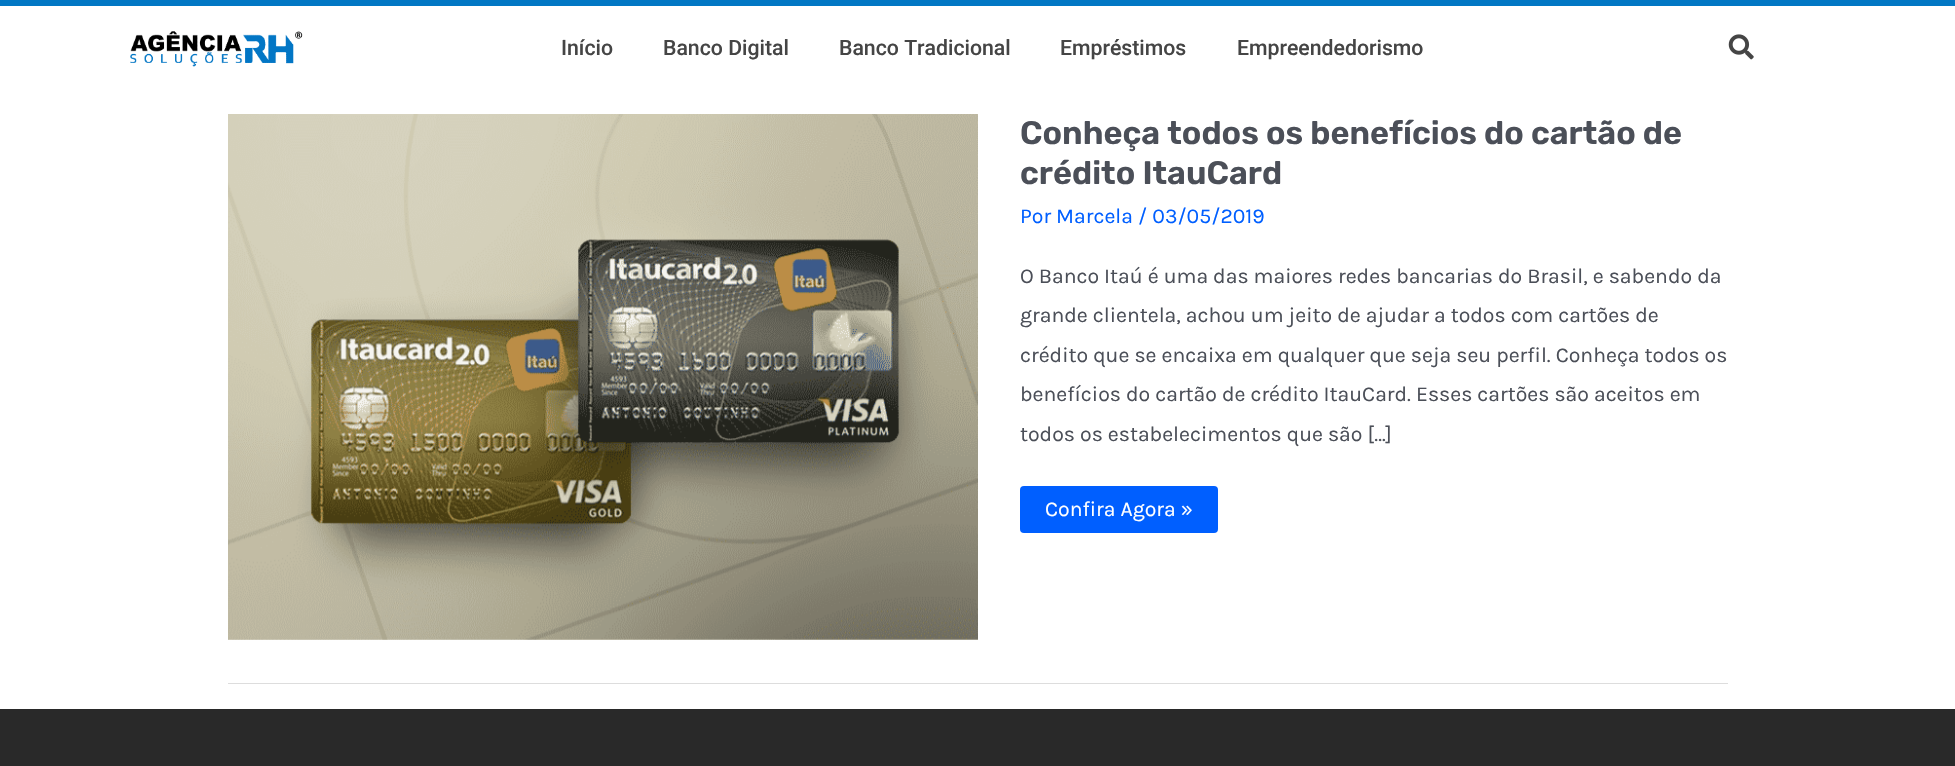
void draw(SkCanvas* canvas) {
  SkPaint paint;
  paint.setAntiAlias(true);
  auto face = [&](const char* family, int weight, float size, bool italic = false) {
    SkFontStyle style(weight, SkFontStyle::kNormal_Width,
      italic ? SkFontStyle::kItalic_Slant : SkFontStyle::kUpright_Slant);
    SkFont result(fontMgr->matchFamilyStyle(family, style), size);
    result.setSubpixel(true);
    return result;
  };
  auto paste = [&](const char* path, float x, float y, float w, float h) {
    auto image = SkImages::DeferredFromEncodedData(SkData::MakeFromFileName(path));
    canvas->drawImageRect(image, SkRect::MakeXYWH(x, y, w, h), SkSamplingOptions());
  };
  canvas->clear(0xffffffff);
  paint.setColor(0xff0277c4);
  canvas->drawRect(SkRect::MakeXYWH(0, 0, 1955, 6), paint);
  paste("img/1.png", 130, 31, 173, 36);
  paste("img/2.png", 1728, 34, 26, 26);
  paint.setColor(0xffdddddd);
  canvas->drawRect(SkRect::MakeXYWH(228, 683, 1500, 1), paint);
  paste("img/3.png", 228, 114, 750, 526);
  paint.setColor(0xff005fff);
  canvas->drawRoundRect(SkRect::MakeXYWH(1020, 486, 198, 47), 4, 4, paint);
  paint.setColor(0xff292929);
  canvas->drawRect(SkRect::MakeXYWH(0, 709, 1955, 57), paint);
  auto f0 = face("Roboto", 500, 21.25f);
  paint.setColor(0xff454545);
  {
    const struct { const char* s; float x, y; } items[] = {
      {"Início", 561, 55},
      {"Banco Digital", 663, 55},
      {"Banco Tradicional", 839, 55},
      {"Empréstimos", 1060, 55},
      {"Empreendedorismo", 1237, 55},
    };
    for (auto [s, x, y] : items) {
      canvas->drawString(s, x, y, f0, paint);
    }
  }
  auto f1 = face("Rubik", 600, 32.5f);
  paint.setColor(0xff4b4f58);
  canvas->drawString("Conheça todos os benefícios do cartão de", 1020, 144, f1, paint);
  canvas->drawString("crédito ItauCard", 1020, 184, f1, paint);
  auto f2 = face("Karla", 400, 21.25f);
  paint.setColor(0xff005fff);
  canvas->drawString("Por Marcela / 03/05/2019", 1020, 223, f2, paint);
  paint.setColor(0xff4b4f58);
  {
    const struct { const char* s; float x, y; } items[] = {
      {"O Banco Itaú é uma das maiores redes bancarias do Brasil, e sabendo da", 1020, 283},
      {"grande clientela, achou um jeito de ajudar a todos com cartões de", 1020, 322},
      {"crédito que se encaixa em qualquer que seja seu perfil. Conheça todos os", 1020, 362},
      {"benefícios do cartão de crédito ItauCard. Esses cartões são aceitos em", 1020, 401},
      {"todos os estabelecimentos que são […]", 1020, 441},
    };
    for (auto [s, x, y] : items) {
      canvas->drawString(s, x, y, f2, paint);
    }
  }
  paint.setColor(0xffffffff);
  canvas->drawString("Confira Agora »", 1045, 516, f2, paint);
}
